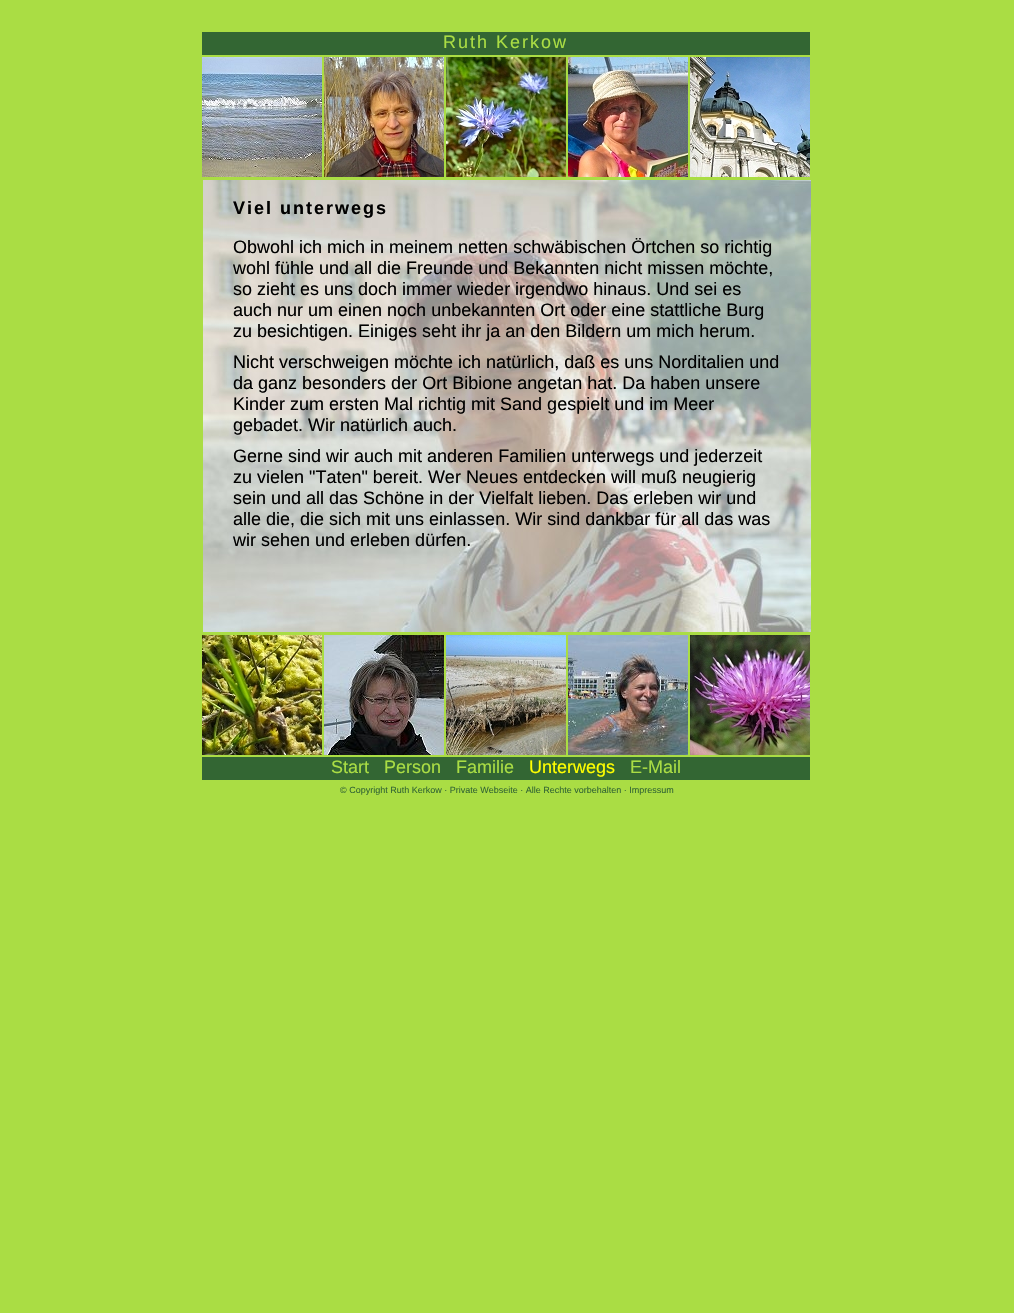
void draw(SkCanvas* canvas) {
  SkPaint paint;
  paint.setAntiAlias(true);
  auto face = [&](const char* family, int weight, float size, bool italic = false) {
    SkFontStyle style(weight, SkFontStyle::kNormal_Width,
      italic ? SkFontStyle::kItalic_Slant : SkFontStyle::kUpright_Slant);
    SkFont result(fontMgr->matchFamilyStyle(family, style), size);
    result.setSubpixel(true);
    return result;
  };
  auto writeSpaced = [&](const char* s, float x, float y, const SkFont& font, const SkPaint& ink, float letter, float word) {
    std::vector<SkGlyphID> glyphs(font.countText(s, strlen(s), SkTextEncoding::kUTF8));
    std::vector<float> xs(glyphs.size());
    font.textToGlyphs(s, strlen(s), SkTextEncoding::kUTF8, glyphs);
    font.getXPos(glyphs, xs, x);
    float extra = 0;
    for (size_t i = 0; i < glyphs.size(); i++) {
      xs[i] += extra;
      extra += letter + word * (glyphs[i] == font.unicharToGlyph(' '));
    }
    canvas->drawTextBlob(SkTextBlob::MakeFromPosHGlyphs(glyphs, xs, y, font), 0, 0, ink);
  };
  auto paste = [&](const char* path, float x, float y, float w, float h) {
    auto image = SkImages::DeferredFromEncodedData(SkData::MakeFromFileName(path));
    canvas->drawImageRect(image, SkRect::MakeXYWH(x, y, w, h), SkSamplingOptions());
  };
  canvas->clear(0xffaadd44);
  paint.setColor(0xff336633);
  canvas->drawRect(SkRect::MakeXYWH(202, 32, 608, 23), paint);
  paste("img/1.png", 202, 57, 120, 120);
  paste("img/2.png", 324, 57, 120, 120);
  paste("img/3.png", 446, 57, 120, 120);
  paste("img/4.png", 568, 57, 120, 120);
  paste("img/5.png", 690, 57, 120, 120);
  paste("img/6.png", 203, 180, 608, 452);
  paste("img/7.png", 202, 635, 120, 120);
  paste("img/8.png", 324, 635, 120, 120);
  paste("img/9.png", 446, 635, 120, 120);
  paste("img/10.png", 568, 635, 120, 120);
  paste("img/11.png", 690, 635, 120, 120);
  canvas->drawRect(SkRect::MakeXYWH(202, 757, 608, 23), paint);
  auto f0 = face("Liberation Sans", 400, 18);
  paint.setColor(0xffaadd44);
  writeSpaced("Ruth Kerkow", 443, 48, f0, paint, 2, 0);
  auto f1 = face("Liberation Sans", 700, 18);
  paint.setColor(0xff000000);
  writeSpaced("Viel unterwegs", 233, 214, f1, paint, 2, 0);
  {
    const struct { const char* s; float x, y; } items[] = {
      {"Obwohl ich mich in meinem netten schwäbischen Örtchen so richtig", 233, 253},
      {"wohl fühle und all die Freunde und Bekannten nicht missen möchte,", 233, 274},
      {"so zieht es uns doch immer wieder irgendwo hinaus. Und sei es", 233, 295},
      {"auch nur um einen noch unbekannten Ort oder eine stattliche Burg", 233, 316},
      {"zu besichtigen. Einiges seht ihr ja an den Bildern um mich herum.", 233, 337},
      {"Nicht verschweigen möchte ich natürlich, daß es uns Norditalien und", 233, 368},
      {"da ganz besonders der Ort Bibione angetan hat. Da haben unsere", 233, 389},
      {"Kinder zum ersten Mal richtig mit Sand gespielt und im Meer", 233, 410},
      {"gebadet. Wir natürlich auch.", 233, 431},
      {"Gerne sind wir auch mit anderen Familien unterwegs und jederzeit", 233, 462},
      {"zu vielen \"Taten\" bereit. Wer Neues entdecken will muß neugierig", 233, 483},
      {"sein und all das Schöne in der Vielfalt lieben. Das erleben wir und", 233, 504},
      {"alle die, die sich mit uns einlassen. Wir sind dankbar für all das was", 233, 525},
      {"wir sehen und erleben dürfen.", 233, 546},
    };
    for (auto [s, x, y] : items) {
      canvas->drawString(s, x, y, f0, paint);
    }
  }
  paint.setColor(0xffaadd44);
  {
    const struct { const char* s; float x, y; } items[] = {
      {"Start", 331, 773},
      {"Person", 384, 773},
      {"Familie", 456, 773},
    };
    for (auto [s, x, y] : items) {
      canvas->drawString(s, x, y, f0, paint);
    }
  }
  paint.setColor(0xffffff00);
  canvas->drawString("Unterwegs", 529, 773, f0, paint);
  paint.setColor(0xffaadd44);
  canvas->drawString("E-Mail", 630, 773, f0, paint);
  auto f2 = face("Liberation Sans", 400, 9);
  paint.setColor(0xff336633);
  canvas->drawString("© Copyright Ruth Kerkow · Private Webseite · Alle Rechte vorbehalten · Impressum", 340, 793, f2, paint);
}
